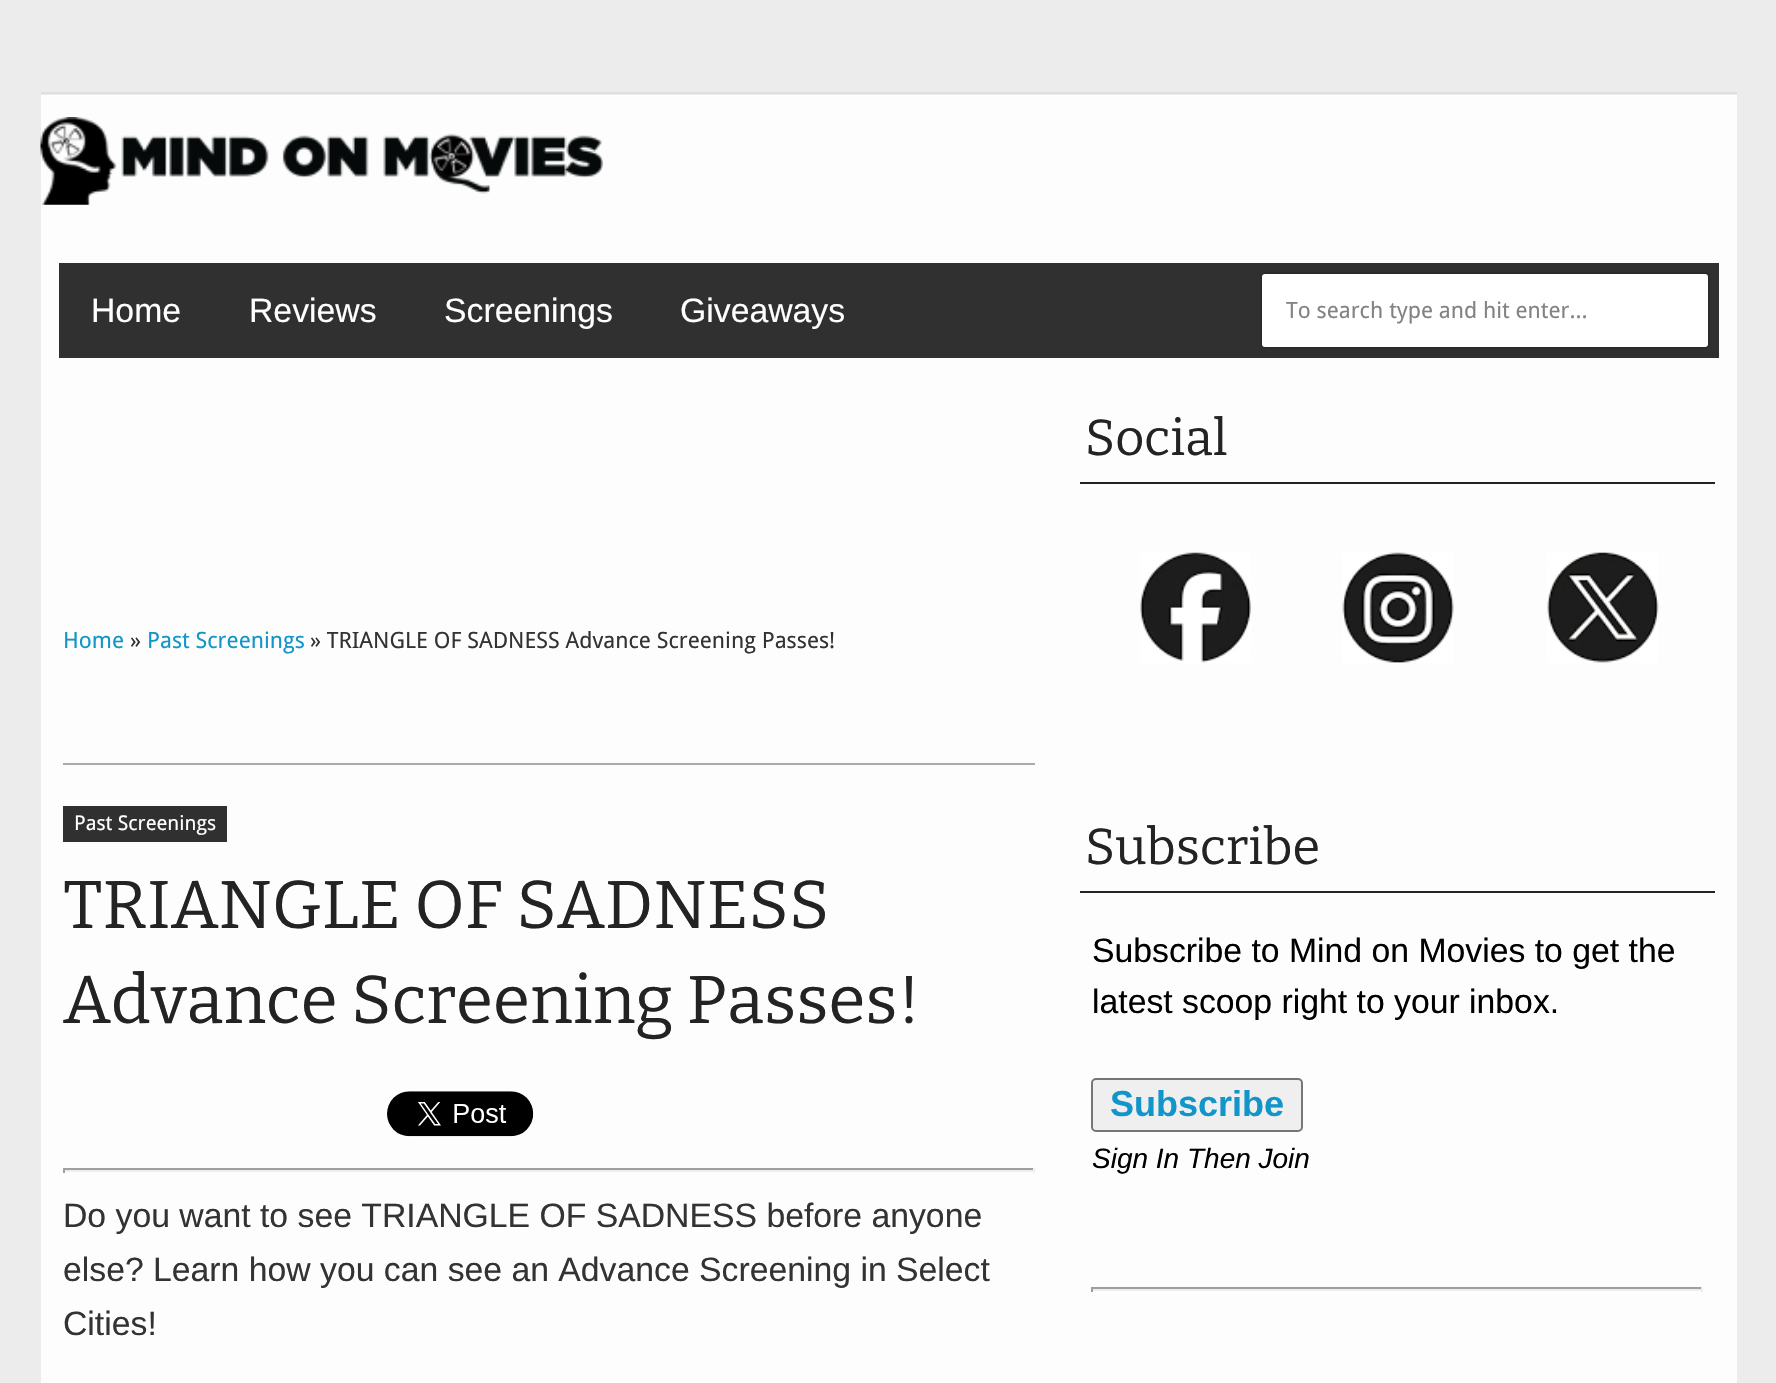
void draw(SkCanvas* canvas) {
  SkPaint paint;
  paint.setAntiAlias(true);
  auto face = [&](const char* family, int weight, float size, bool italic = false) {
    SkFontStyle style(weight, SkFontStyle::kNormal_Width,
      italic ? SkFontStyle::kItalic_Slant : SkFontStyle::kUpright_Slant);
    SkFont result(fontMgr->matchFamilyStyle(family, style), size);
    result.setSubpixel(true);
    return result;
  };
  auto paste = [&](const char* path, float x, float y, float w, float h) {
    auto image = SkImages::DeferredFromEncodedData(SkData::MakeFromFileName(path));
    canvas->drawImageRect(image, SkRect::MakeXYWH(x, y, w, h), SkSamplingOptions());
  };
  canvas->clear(0xffececec);
  paint.setColor(0xfffdfdfd);
  canvas->drawRect(SkRect::MakeXYWH(41, 95, 1696, 1288), paint);
  paint.setColor(0xffdfdfdf);
  canvas->drawRect(SkRect::MakeXYWH(41, 92, 1696, 2), paint);
  paste("img/1.png", 40, 117, 563, 88);
  paint.setColor(0xff303030);
  canvas->drawRect(SkRect::MakeXYWH(59, 263, 1660, 95), paint);
  paint.setColor(0xffffffff);
  canvas->drawRoundRect(SkRect::MakeXYWH(1261, 273, 448, 75), 4, 4, paint);
  paint.setStroke(true);
  paint.setStrokeWidth(2);
  paint.setColor(0xff2b2b2b);
  canvas->drawRoundRect(SkRect::MakeXYWH(1261, 273, 448, 75), 4, 4, paint);
  paint.setStroke(false);
  paint.setColor(0xffaaaaaa);
  canvas->drawRect(SkRect::MakeXYWH(63, 763, 972, 2), paint);
  paint.setColor(0xff303030);
  canvas->drawRect(SkRect::MakeXYWH(63, 806, 164, 36), paint);
  paste("img/2.png", 387, 1091, 147, 46);
  {
    const struct { float x, y, w, h; SkColor color; } items[] = {
      {63, 1168, 972, 2, 0xff9f9f9f},
      {1033, 1168, 2, 5, 0xffeeeeee},
      {63, 1170, 972, 2, 0xffeeeeee},
      {63, 1168, 2, 5, 0xff9f9f9f},
      {1080, 482, 635, 2, 0xff242323},
    };
    for (auto [x, y, w, h, color] : items) {
      paint.setColor(color);
      canvas->drawRect(SkRect::MakeXYWH(x, y, w, h), paint);
    }
  }
  paste("img/3.png", 1140, 552, 111, 111);
  paste("img/4.png", 1342, 552, 112, 111);
  paste("img/5.png", 1547, 551, 112, 112);
  canvas->drawRect(SkRect::MakeXYWH(1080, 891, 635, 2), paint);
  paint.setColor(0xffefefef);
  canvas->drawRoundRect(SkRect::MakeXYWH(1092, 1079, 210, 52), 4, 4, paint);
  paint.setStroke(true);
  paint.setColor(0xff767676);
  canvas->drawRoundRect(SkRect::MakeXYWH(1092, 1079, 210, 52), 4, 4, paint);
  paint.setStroke(false);
  {
    const struct { float x, y, w, h; SkColor color; } items[] = {
      {1091, 1287, 612, 2, 0xff9f9f9f},
      {1701, 1287, 2, 5, 0xffeeeeee},
      {1091, 1289, 612, 2, 0xffeeeeee},
      {1091, 1287, 2, 5, 0xff9f9f9f},
    };
    for (auto [x, y, w, h, color] : items) {
      paint.setColor(color);
      canvas->drawRect(SkRect::MakeXYWH(x, y, w, h), paint);
    }
  }
  auto f0 = face("Liberation Sans", 400, 33.75f);
  paint.setColor(0xffffffff);
  {
    const struct { const char* s; float x, y; } items[] = {
      {"Home", 91, 322},
      {"Reviews", 249, 322},
      {"Screenings", 444, 322},
      {"Giveaways", 680, 322},
    };
    for (auto [s, x, y] : items) {
      canvas->drawString(s, x, y, f0, paint);
    }
  }
  auto f1 = face("Droid Sans", 400, 22.5f);
  paint.setColor(0xff838383);
  canvas->drawString("To search type and hit enter...", 1286, 318, f1, paint);
  paint.setColor(0xff1295c9);
  canvas->drawString("Home", 63, 648, f1, paint);
  paint.setColor(0xff333333);
  canvas->drawString("»", 130, 648, f1, paint);
  paint.setColor(0xff1295c9);
  canvas->drawString("Past Screenings", 147, 648, f1, paint);
  paint.setColor(0xff333333);
  canvas->drawString("» TRIANGLE OF SADNESS Advance Screening Passes!", 310, 648, f1, paint);
  auto f2 = face("Droid Sans", 400, 20.25f);
  paint.setColor(0xffffffff);
  canvas->drawString("Past Screenings", 74, 830, f2, paint);
  auto f3 = face("Bitter", 100, 67.5f);
  paint.setColor(0xff242323);
  canvas->drawString("TRIANGLE OF SADNESS", 63, 928, f3, paint);
  canvas->drawString("Advance Screening Passes!", 63, 1023, f3, paint);
  paint.setColor(0xff333333);
  {
    const struct { const char* s; float x, y; } items[] = {
      {"Do you want to see TRIANGLE OF SADNESS before anyone", 63, 1227},
      {"else? Learn how you can see an Advance Screening in Select", 63, 1281},
      {"Cities!", 63, 1335},
    };
    for (auto [s, x, y] : items) {
      canvas->drawString(s, x, y, f0, paint);
    }
  }
  auto f4 = face("Bitter", 100, 50.5f);
  paint.setColor(0xff242323);
  canvas->drawString("Social", 1085, 455, f4, paint);
  canvas->drawString("Subscribe", 1085, 864, f4, paint);
  paint.setColor(0xff000000);
  canvas->drawString("Subscribe to Mind on Movies to get the", 1092, 962, f0, paint);
  canvas->drawString("latest scoop right to your inbox.", 1092, 1013, f0, paint);
  auto f5 = face("Liberation Sans", 700, 36);
  paint.setColor(0xff1295c9);
  canvas->drawString("Subscribe", 1110, 1116, f5, paint);
  auto f6 = face("Liberation Sans", 400, 28, true);
  paint.setColor(0xff000000);
  canvas->drawString("Sign In Then Join", 1092, 1168, f6, paint);
}
